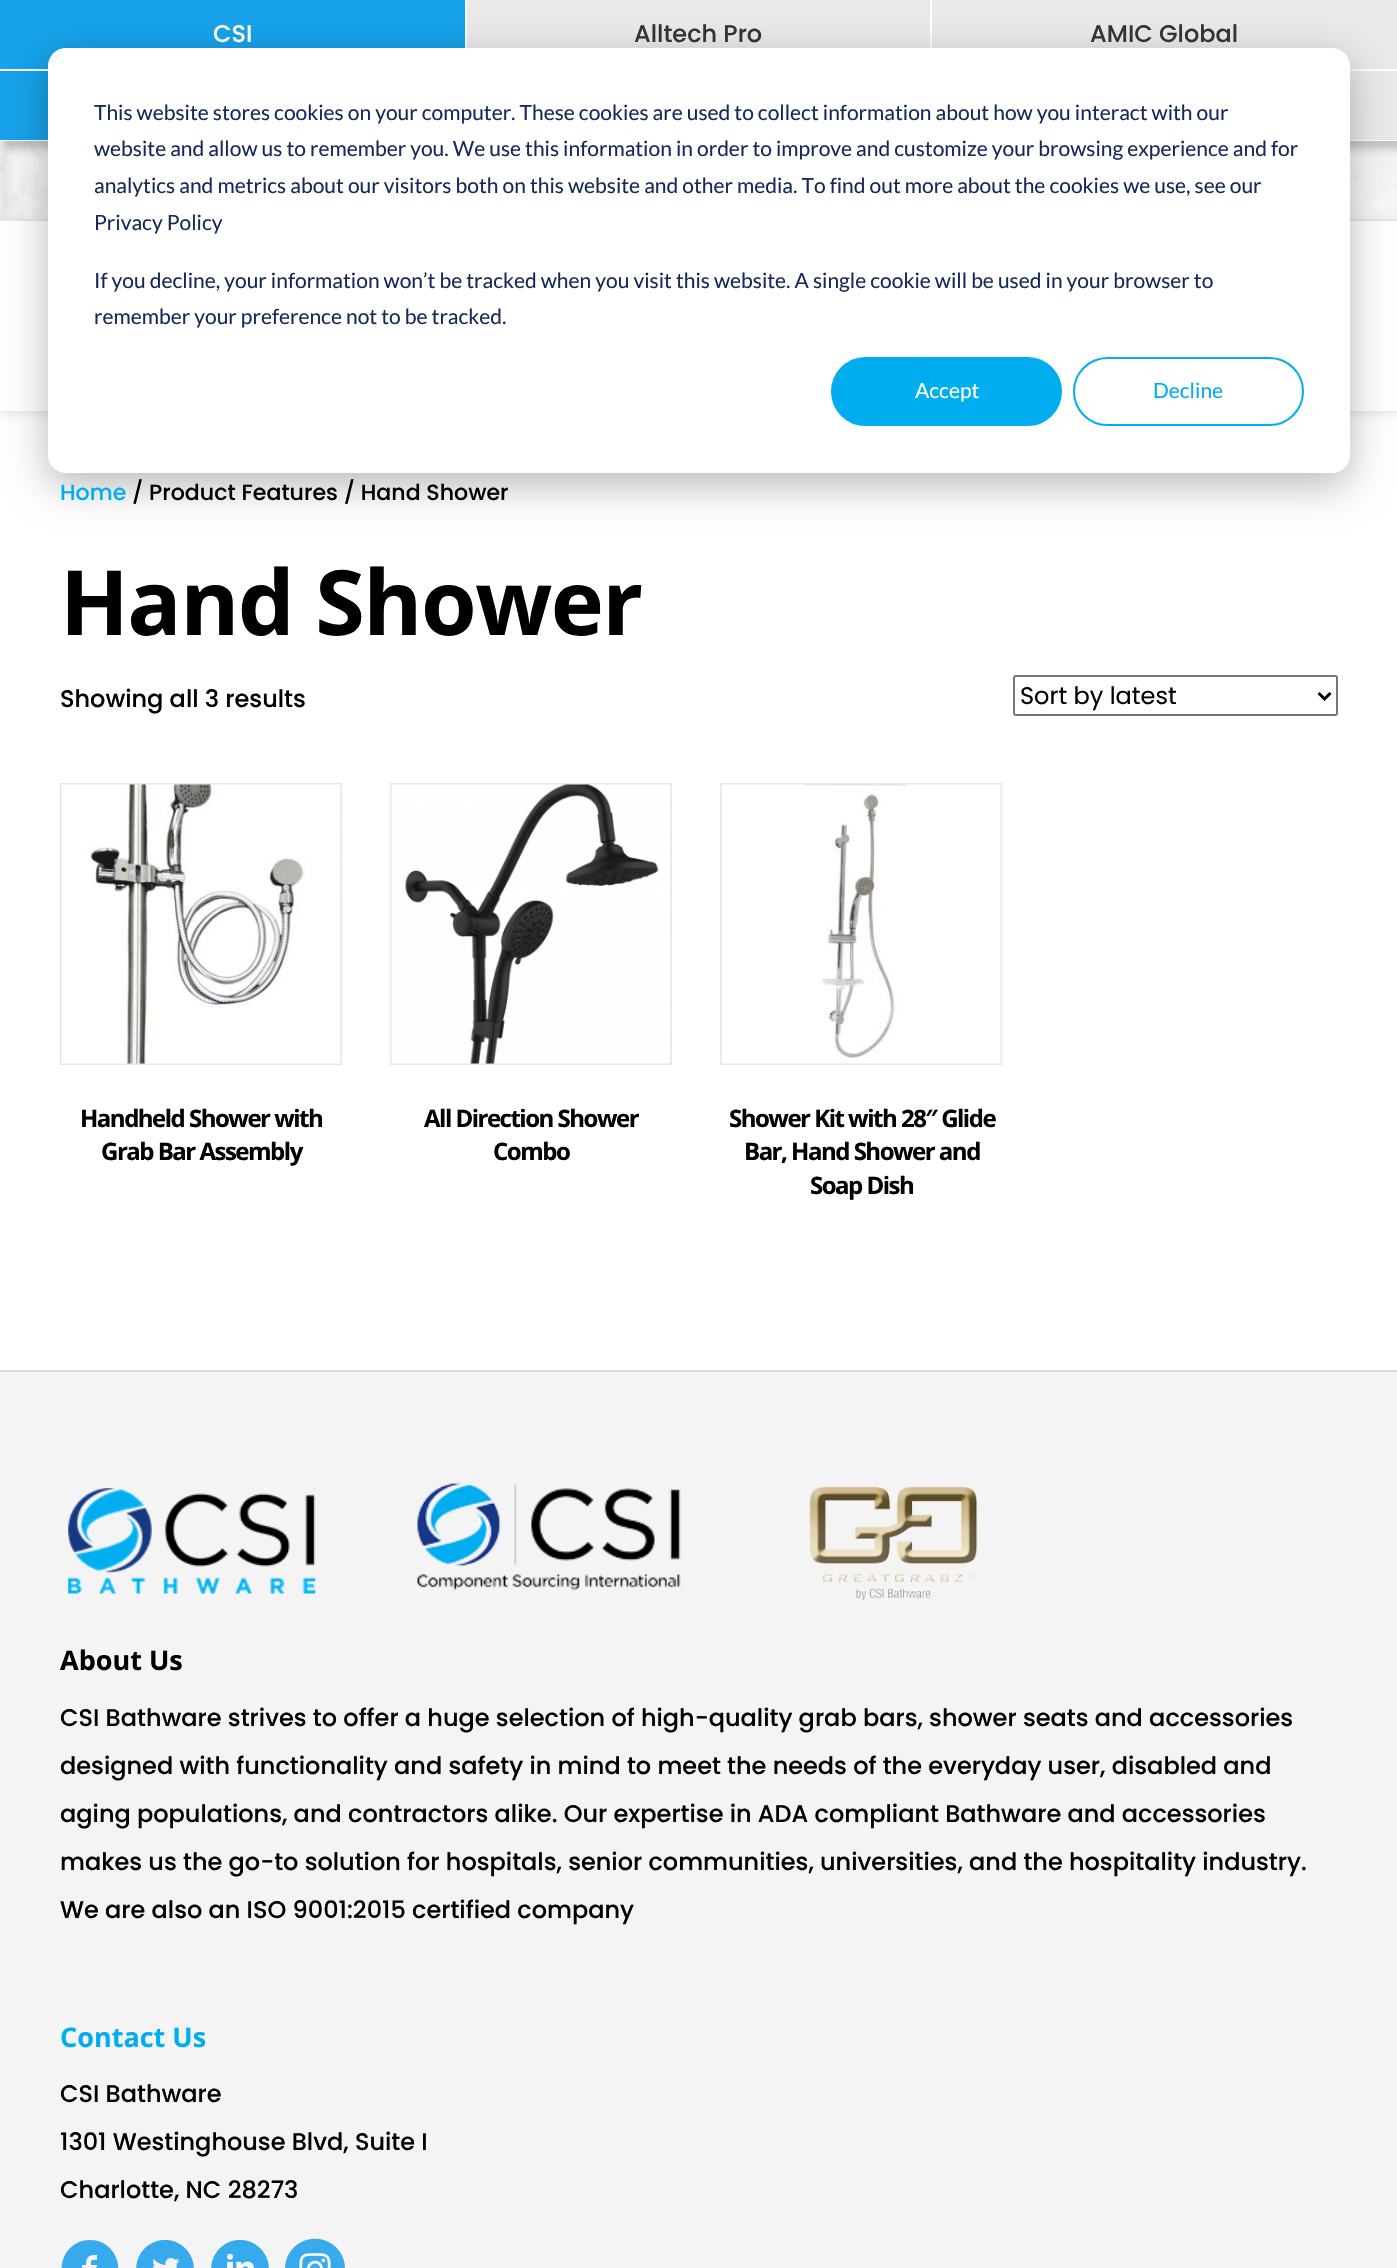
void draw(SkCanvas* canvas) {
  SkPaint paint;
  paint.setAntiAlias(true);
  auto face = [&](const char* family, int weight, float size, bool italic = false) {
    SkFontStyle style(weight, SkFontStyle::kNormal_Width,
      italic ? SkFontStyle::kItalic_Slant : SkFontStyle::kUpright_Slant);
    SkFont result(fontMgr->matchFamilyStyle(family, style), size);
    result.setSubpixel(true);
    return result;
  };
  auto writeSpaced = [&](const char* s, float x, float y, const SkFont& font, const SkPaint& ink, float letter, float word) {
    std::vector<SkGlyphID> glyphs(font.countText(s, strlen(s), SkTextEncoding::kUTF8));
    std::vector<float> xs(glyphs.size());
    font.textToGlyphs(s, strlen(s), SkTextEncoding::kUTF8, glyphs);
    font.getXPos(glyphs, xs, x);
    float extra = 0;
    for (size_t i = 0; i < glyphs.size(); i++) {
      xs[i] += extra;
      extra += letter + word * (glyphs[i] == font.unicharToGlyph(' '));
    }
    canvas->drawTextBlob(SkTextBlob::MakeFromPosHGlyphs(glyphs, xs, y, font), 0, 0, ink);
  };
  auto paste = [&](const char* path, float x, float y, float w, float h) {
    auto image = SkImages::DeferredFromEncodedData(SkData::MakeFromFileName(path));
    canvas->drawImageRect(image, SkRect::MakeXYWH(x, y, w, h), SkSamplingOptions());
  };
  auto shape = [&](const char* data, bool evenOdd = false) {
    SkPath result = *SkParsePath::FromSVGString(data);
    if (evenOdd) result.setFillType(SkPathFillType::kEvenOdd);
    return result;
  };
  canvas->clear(0xffffffff);
  {
    const struct { float x, y, w, h; SkColor color; } items[] = {
      {0, 0, 465, 69, 0xff16a2ea},
      {467, 0, 463, 48, 0xffeaeaea},
      {932, 0, 465, 69, 0xffeaeaea},
      {0, 71, 48, 69, 0xff16a2ea},
      {1350, 71, 47, 69, 0xffeaeaea},
    };
    for (auto [x, y, w, h, color] : items) {
      paint.setColor(color);
      canvas->drawRect(SkRect::MakeXYWH(x, y, w, h), paint);
    }
  }
  paste("img/1.png", 0, 141, 1397, 78);
  canvas->save();
  canvas->clipPath(shape("M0 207H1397V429H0ZM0 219H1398V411H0Z", true), true);
  paint.setColor(0x1a000000);
  paint.setMaskFilter(SkMaskFilter::MakeBlur(kNormal_SkBlurStyle, 4.5f));
  canvas->drawRect(SkRect::MakeXYWH(0, 222, 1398, 192), paint);
  paint.setMaskFilter(nullptr);
  canvas->restore();
  paint.setColor(0xffe5e6e6);
  canvas->drawRect(SkRect::MakeXYWH(0, 219, 1397, 2), paint);
  paint.setStroke(true);
  paint.setStrokeWidth(2);
  paint.setColor(0xff767676);
  canvas->drawRoundRect(SkRect::MakeXYWH(1014, 676, 323, 39), 2, 2, paint);
  paint.setStrokeWidth(3);
  paint.setColor(0xff000000);
  canvas->drawPath(shape("M1318.5 693L1324.5 699L1330.5 693"), paint);
  paint.setStrokeWidth(2);
  paint.setColor(0xffe6e6e6);
  canvas->drawRect(SkRect::MakeXYWH(61, 784, 280, 280), paint);
  paste("img/2.png", 61, 784, 280, 280);
  canvas->drawRect(SkRect::MakeXYWH(391, 784, 280, 280), paint);
  paste("img/3.png", 391, 784, 280, 280);
  canvas->drawRect(SkRect::MakeXYWH(721, 784, 280, 280), paint);
  paste("img/4.png", 721, 784, 280, 280);
  paint.setStroke(false);
  paint.setColor(0xfff4f4f4);
  canvas->drawRect(SkRect::MakeXYWH(0, 1372, 1397, 896), paint);
  paint.setColor(0xffdadada);
  canvas->drawRect(SkRect::MakeXYWH(0, 1370, 1397, 2), paint);
  paste("img/5.png", 68, 1488, 248, 106);
  paste("img/6.png", 416, 1482, 265, 109);
  paste("img/7.png", 809, 1486, 169, 115);
  paint.setColor(0xff37a9ed);
  canvas->drawPath(shape("M90 2240C63 2240 51 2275 73 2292C78 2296 84 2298 90 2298C96 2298 102 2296 107 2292C129 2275 117 2240 90 2240ZM97 2260C91 2260 91 2259 91 2265H97L96 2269H91V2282H86V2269H82V2265H86C86 2256 89 2255 97 2255Z"), paint);
  paste("img/8.png", 136, 2239, 58, 29);
  paste("img/9.png", 211, 2239, 58, 29);
  paste("img/10.png", 285, 2238, 60, 30);
  paint.setColor(0x47000000);
  paint.setMaskFilter(SkMaskFilter::MakeBlur(kNormal_SkBlurStyle, 21));
  canvas->drawRoundRect(SkRect::MakeXYWH(48, 60, 1302, 425), 18, 18, paint);
  paint.setMaskFilter(nullptr);
  paint.setColor(0xffffffff);
  canvas->drawRoundRect(SkRect::MakeXYWH(48, 48, 1302, 425), 18, 18, paint);
  paint.setColor(0xff00aeef);
  canvas->drawRoundRect(SkRect::MakeXYWH(832, 358, 229, 67), 33.5f, 33.5f, paint);
  paint.setStroke(true);
  canvas->drawRoundRect(SkRect::MakeXYWH(832, 358, 229, 67), 33.5f, 33.5f, paint);
  canvas->drawRoundRect(SkRect::MakeXYWH(1074, 358, 229, 67), 33.5f, 33.5f, paint);
  auto f0 = face("Poppins", 500, 24);
  paint.setStroke(false);
  paint.setColor(0xffffffff);
  canvas->drawString("CSI", 213, 42, f0, paint);
  paint.setColor(0xff333333);
  canvas->drawString("Alltech Pro", 634, 42, f0, paint);
  canvas->drawString("AMIC Global", 1090, 42, f0, paint);
  auto f1 = face("Poppins", 500, 22.1f);
  paint.setColor(0xff00aeef);
  canvas->drawString("Home", 60, 500, f1, paint);
  paint.setColor(0xff000000);
  canvas->drawString("/ Product Features / Hand Shower", 132, 500, f1, paint);
  auto f2 = face("Open Sans", 700, 90);
  writeSpaced("Hand Shower", 60, 635, f2, paint, -1.5f, 0);
  canvas->drawString("Showing all 3 results", 60, 707, f0, paint);
  auto f3 = face("Poppins", 400, 24);
  canvas->drawString("Sort by latest", 1020, 704, f3, paint);
  auto f4 = face("Open Sans", 700, 24);
  {
    const struct { const char* s; float x, y; } items[] = {
      {"Handheld Shower with", 80, 1127},
      {"Grab Bar Assembly", 101, 1160},
      {"All Direction Shower", 424, 1127},
      {"Combo", 493, 1160},
      {"Shower Kit with 28″ Glide", 729, 1127},
      {"Bar, Hand Shower and", 744, 1160},
      {"Soap Dish", 810, 1194},
    };
    for (auto [s, x, y] : items) {
      writeSpaced(s, x, y, f4, paint, -1.5f, 0);
    }
  }
  auto f5 = face("Open Sans", 700, 27);
  canvas->drawString("About Us", 60, 1670, f5, paint);
  {
    const struct { const char* s; float x, y; } items[] = {
      {"CSI Bathware strives to offer a huge selection of high-quality grab bars, shower seats and accessories", 60, 1726},
      {"designed with functionality and safety in mind to meet the needs of the everyday user, disabled and", 60, 1774},
      {"aging populations, and contractors alike. Our expertise in ADA compliant Bathware and accessories", 60, 1822},
      {"makes us the go-to solution for hospitals, senior communities, universities, and the hospitality industry.", 60, 1870},
      {"We are also an ISO 9001:2015 certified company", 60, 1918},
    };
    for (auto [s, x, y] : items) {
      canvas->drawString(s, x, y, f0, paint);
    }
  }
  paint.setColor(0xff00aeef);
  canvas->drawString("Contact Us", 60, 2047, f5, paint);
  paint.setColor(0xff000000);
  {
    const struct { const char* s; float x, y; } items[] = {
      {"CSI Bathware", 60, 2102},
      {"1301 Westinghouse Blvd, Suite I", 60, 2150},
      {"Charlotte, NC 28273", 60, 2198},
    };
    for (auto [s, x, y] : items) {
      canvas->drawString(s, x, y, f0, paint);
    }
  }
  auto f6 = face("Lato", 400, 21);
  paint.setColor(0xff15295a);
  {
    const struct { const char* s; float x, y; } items[] = {
      {"This website stores cookies on your computer. These cookies are used to collect information about how you interact with our", 94, 120},
      {"website and allow us to remember you. We use this information in order to improve and customize your browsing experience and for", 94, 156},
      {"analytics and metrics about our visitors both on this website and other media. To find out more about the cookies we use, see our", 94, 193},
      {"Privacy Policy", 94, 230},
      {"If you decline, your information won’t be tracked when you visit this website. A single cookie will be used in your browser to", 94, 288},
      {"remember your preference not to be tracked.", 94, 324},
    };
    for (auto [s, x, y] : items) {
      canvas->drawString(s, x, y, f6, paint);
    }
  }
  paint.setColor(0xffffffff);
  canvas->drawString("Accept", 915, 398, f6, paint);
  paint.setColor(0xff00aeef);
  canvas->drawString("Decline", 1153, 398, f6, paint);
}
